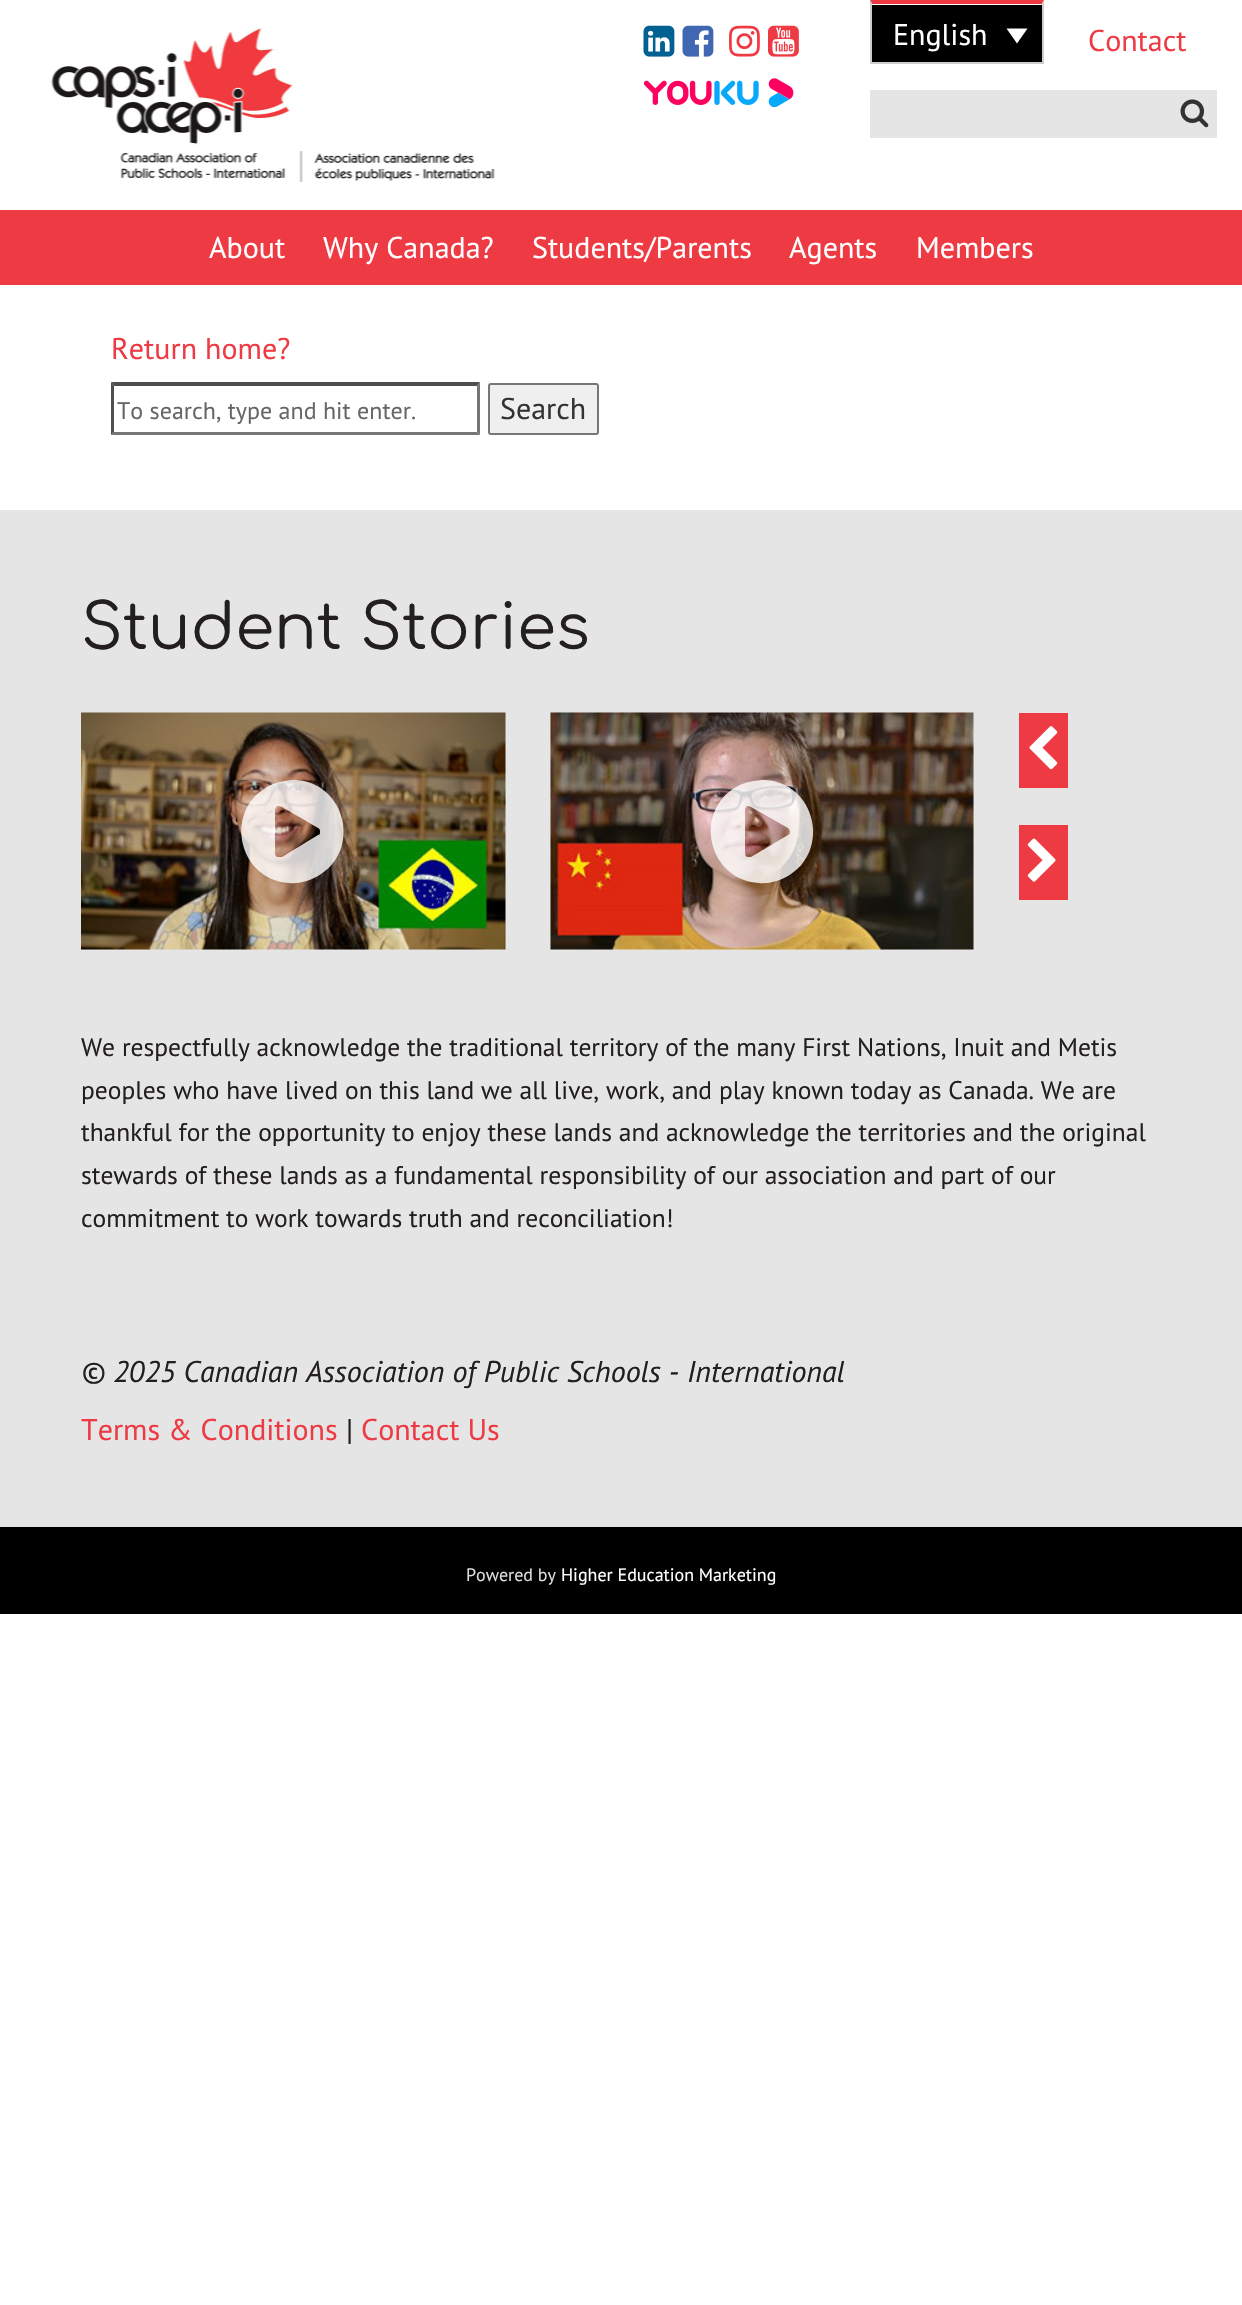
void draw(SkCanvas* canvas) {
  SkPaint paint;
  paint.setAntiAlias(true);
  auto face = [&](const char* family, int weight, float size, bool italic = false) {
    SkFontStyle style(weight, SkFontStyle::kNormal_Width,
      italic ? SkFontStyle::kItalic_Slant : SkFontStyle::kUpright_Slant);
    SkFont result(fontMgr->matchFamilyStyle(family, style), size);
    result.setSubpixel(true);
    return result;
  };
  auto paste = [&](const char* path, float x, float y, float w, float h) {
    auto image = SkImages::DeferredFromEncodedData(SkData::MakeFromFileName(path));
    canvas->drawImageRect(image, SkRect::MakeXYWH(x, y, w, h), SkSamplingOptions());
  };
  auto shape = [&](const char* data, bool evenOdd = false) {
    SkPath result = *SkParsePath::FromSVGString(data);
    if (evenOdd) result.setFillType(SkPathFillType::kEvenOdd);
    return result;
  };
  canvas->clear(0xffffffff);
  paste("img/1.png", 51, 27, 444, 155);
  paste("img/2.png", 643, 25, 32, 32);
  paste("img/3.png", 682, 25, 32, 32);
  paste("img/4.png", 729, 25, 31, 32);
  paste("img/5.png", 768, 25, 31, 32);
  paste("img/6.png", 644, 78, 150, 30);
  paint.setColor(0xff000000);
  canvas->drawRect(SkRect::MakeXYWH(872, 5, 170, 57), paint);
  paint.setColor(0xffee3a43);
  canvas->drawPath(shape("M870 0H1044L1042 4H872Z"), paint);
  paint.setColor(0xffcdcdcd);
  canvas->drawPath(shape("M1044 0V63L1042 62V4Z"), paint);
  canvas->drawRect(SkRect::MakeXYWH(870, 62, 174, 2), paint);
  canvas->drawPath(shape("M870 63V0L872 4V62Z"), paint);
  paint.setColor(0xffffffff);
  canvas->drawPath(shape("M1006.5 28.5H1027.5L1017 43.5Z"), paint);
  paint.setColor(0xffe5e5e5);
  canvas->drawRect(SkRect::MakeXYWH(870, 90, 347, 48), paint);
  paste("img/7.png", 1180, 99, 29, 29);
  paint.setColor(0xffee3a43);
  canvas->drawRect(SkRect::MakeXYWH(0, 210, 1242, 75), paint);
  paint.setColor(0xff4f4f4f);
  canvas->drawPath(shape("M111 382H480L477 386H114Z"), paint);
  paint.setColor(0xff767676);
  canvas->drawPath(shape("M480 382V435L477 432V386Z"), paint);
  canvas->drawPath(shape("M480 435H111L114 432H477Z"), paint);
  paint.setColor(0xff4f4f4f);
  canvas->drawPath(shape("M111 435V382L114 386V432Z"), paint);
  paint.setColor(0xffefefef);
  canvas->drawRoundRect(SkRect::MakeXYWH(489, 384, 109, 50), 2, 2, paint);
  paint.setStroke(true);
  paint.setStrokeWidth(2);
  paint.setColor(0xff767676);
  canvas->drawRoundRect(SkRect::MakeXYWH(489, 384, 109, 50), 2, 2, paint);
  paint.setStroke(false);
  paint.setColor(0xffe5e5e5);
  canvas->drawRect(SkRect::MakeXYWH(0, 510, 1242, 1017), paint);
  paste("img/8.png", 81, 712, 425, 238);
  paint.setColor(0xccffffff);
  canvas->drawPath(shape("M267 787C276 782 286 780 296 780C346 783 362 851 318 876C309 881 299 884 289 883C239 880 223 812 267 787ZM318 835C320 835 320 833 320 832C320 830 320 829 318 828L282 807C280 806 279 806 277 806C276 807 275 809 275 810V853C275 855 276 856 277 857H280H282Z"), paint);
  paste("img/9.png", 550, 712, 424, 238);
  canvas->drawPath(shape("M736 787C745 782 755 780 765 780C816 783 831 851 788 876C779 881 769 884 759 883C708 880 693 812 736 787ZM788 835C789 835 790 833 790 832C790 830 789 829 788 828L751 807C750 806 748 806 747 806C746 807 745 809 745 810V853C745 855 746 856 747 857H749H751Z"), paint);
  paint.setColor(0xffee3a43);
  canvas->drawRect(SkRect::MakeXYWH(1019, 713, 49, 75), paint);
  paste("img/10.png", 1029, 726, 29, 44);
  canvas->drawRect(SkRect::MakeXYWH(1019, 825, 49, 75), paint);
  paste("img/11.png", 1027, 838, 29, 44);
  paint.setColor(0xff000000);
  canvas->drawRect(SkRect::MakeXYWH(0, 1527, 1242, 87), paint);
  auto f0 = face("PT Sans", 400, 30);
  paint.setColor(0xffffffff);
  canvas->drawString("English", 893, 45, f0, paint);
  paint.setColor(0xffee3a43);
  canvas->drawString("Contact", 1088, 51, f0, paint);
  paint.setColor(0xffffffff);
  {
    const struct { const char* s; float x, y; } items[] = {
      {"About", 209, 258},
      {"Why Canada?", 323, 258},
      {"Students/Parents", 532, 258},
      {"Agents", 789, 258},
      {"Members", 916, 258},
    };
    for (auto [s, x, y] : items) {
      canvas->drawString(s, x, y, f0, paint);
    }
  }
  paint.setColor(0xffee3a43);
  canvas->drawString("Return home?", 111, 359, f0, paint);
  auto f1 = face("PT Sans", 400, 24);
  paint.setColor(0xff666666);
  canvas->drawString("To search, type and hit enter.", 117, 419, f1, paint);
  paint.setColor(0xff333333);
  canvas->drawString("Search", 500, 419, f0, paint);
  auto f2 = face("Comfortaa", 400, 63);
  paint.setColor(0xff231f20);
  canvas->drawString("Student Stories", 81, 649, f2, paint);
  auto f3 = face("PT Sans", 400, 25.5f);
  {
    const struct { const char* s; float x, y; } items[] = {
      {"We respectfully acknowledge the traditional territory of the many First Nations, Inuit and Metis", 81, 1056},
      {"peoples who have lived on this land we all live, work, and play known today as Canada. We are", 81, 1099},
      {"thankful for the opportunity to enjoy these lands and acknowledge the territories and the original", 81, 1141},
      {"stewards of these lands as a fundamental responsibility of our association and part of our", 81, 1184},
      {"commitment to work towards truth and reconciliation!", 81, 1227},
    };
    for (auto [s, x, y] : items) {
      canvas->drawString(s, x, y, f3, paint);
    }
  }
  auto f4 = face("PT Sans", 400, 30, true);
  canvas->drawString("© 2025 Canadian Association of Public Schools - International", 81, 1382, f4, paint);
  paint.setColor(0xffee3a43);
  canvas->drawString("Terms & Conditions", 81, 1440, f0, paint);
  paint.setColor(0xff231f20);
  canvas->drawString("|", 346, 1440, f0, paint);
  paint.setColor(0xffee3a43);
  canvas->drawString("Contact Us", 361, 1440, f0, paint);
  auto f5 = face("PT Sans", 400, 18);
  paint.setColor(0xffdddddd);
  canvas->drawString("Powered by", 466, 1581, f5, paint);
  paint.setColor(0xffffffff);
  canvas->drawString("Higher Education Marketing", 561, 1581, f5, paint);
}
